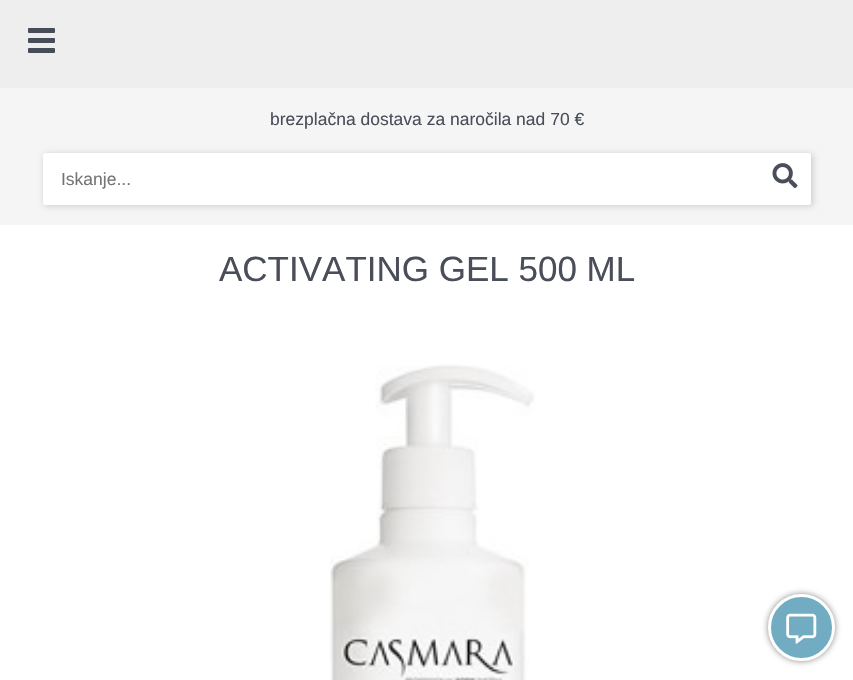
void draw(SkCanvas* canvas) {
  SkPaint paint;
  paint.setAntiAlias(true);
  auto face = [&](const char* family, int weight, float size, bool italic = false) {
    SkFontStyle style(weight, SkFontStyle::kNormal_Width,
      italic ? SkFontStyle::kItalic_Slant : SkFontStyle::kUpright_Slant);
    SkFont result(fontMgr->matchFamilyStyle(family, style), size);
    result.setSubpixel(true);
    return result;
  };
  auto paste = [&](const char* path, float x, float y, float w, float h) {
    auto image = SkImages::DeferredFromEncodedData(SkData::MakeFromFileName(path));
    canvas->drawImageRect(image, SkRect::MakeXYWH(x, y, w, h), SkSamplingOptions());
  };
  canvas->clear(0xffffffff);
  paint.setColor(0xfff5f5f5);
  canvas->drawRect(SkRect::MakeXYWH(0, 88, 853, 137), paint);
  paint.setColor(0xffeeeeee);
  canvas->drawRect(SkRect::MakeXYWH(0, 0, 853, 88), paint);
  paint.setColor(0xff474d58);
  canvas->drawRoundRect(SkRect::MakeXYWH(28, 28, 27, 5), 1, 1, paint);
  canvas->drawRoundRect(SkRect::MakeXYWH(28, 38, 27, 5), 1, 1, paint);
  canvas->drawRoundRect(SkRect::MakeXYWH(28, 48, 27, 5), 1, 1, paint);
  paint.setColor(0xffcccccc);
  paint.setMaskFilter(SkMaskFilter::MakeBlur(kNormal_SkBlurStyle, 3));
  canvas->drawRoundRect(SkRect::MakeXYWH(44, 154, 769, 52), 2.5f, 2.5f, paint);
  paint.setMaskFilter(nullptr);
  paint.setColor(0xffffffff);
  canvas->drawRoundRect(SkRect::MakeXYWH(43, 153, 768, 52), 2.5f, 2.5f, paint);
  paste("img/1.png", 772, 163, 26, 26);
  paint.setColor(0xff888888);
  paint.setMaskFilter(SkMaskFilter::MakeBlur(kNormal_SkBlurStyle, 3));
  canvas->drawRoundRect(SkRect::MakeXYWH(768, 594, 67, 67), 33.5f, 33.5f, paint);
  paint.setMaskFilter(nullptr);
  paint.setColor(0xff72acc2);
  canvas->drawCircle(801.5f, 627.5f, 32, paint);
  paint.setStroke(true);
  paint.setStrokeWidth(3);
  paint.setColor(0xffffffff);
  canvas->drawCircle(801.5f, 627.5f, 32, paint);
  paste("img/2.png", 786, 613, 31, 31);
  paste("img/3.png", 329, 364, 206, 316);
  auto f0 = face("Liberation Sans", 400, 17.5f);
  paint.setStroke(false);
  paint.setColor(0xff494e59);
  canvas->drawString("brezplačna dostava za naročila nad 70 €", 270, 125, f0, paint);
  paint.setColor(0xff757575);
  canvas->drawString("Iskanje...", 61, 185, f0, paint);
  auto f1 = face("Liberation Sans", 400, 35);
  paint.setColor(0xff494e59);
  canvas->drawString("ACTIVATING GEL 500 ML", 219, 281, f1, paint);
}
